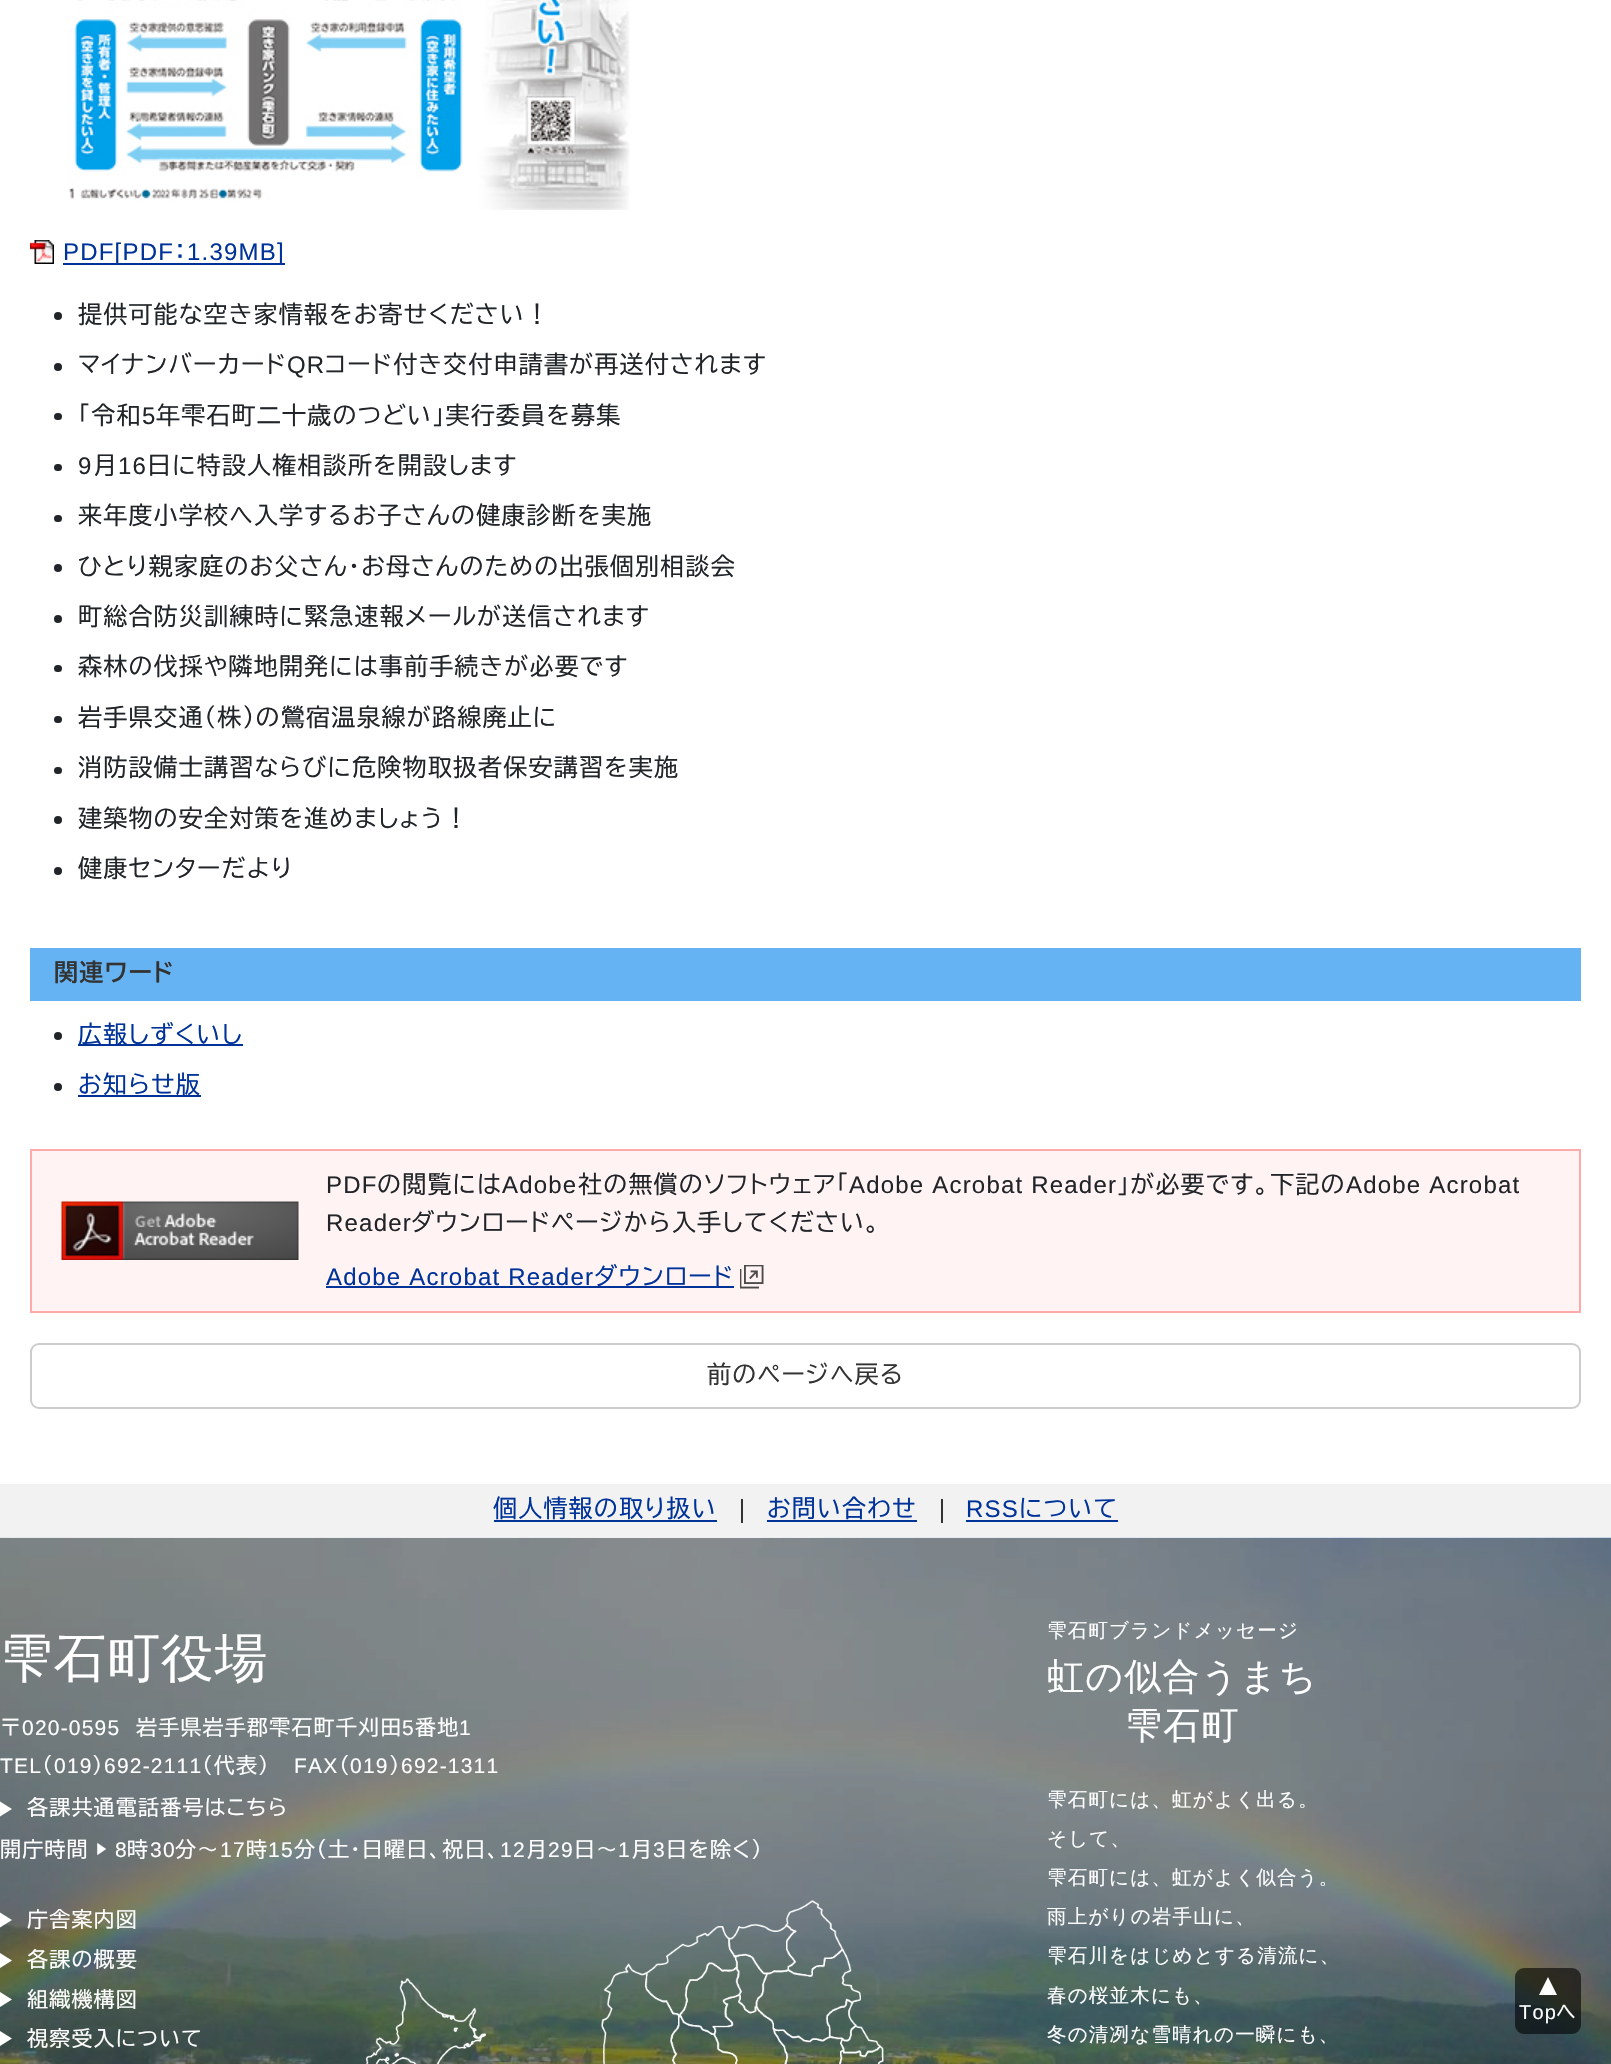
void draw(SkCanvas* canvas) {
  SkPaint paint;
  paint.setAntiAlias(true);
  auto face = [&](const char* family, int weight, float size, bool italic = false) {
    SkFontStyle style(weight, SkFontStyle::kNormal_Width,
      italic ? SkFontStyle::kItalic_Slant : SkFontStyle::kUpright_Slant);
    SkFont result(fontMgr->matchFamilyStyle(family, style), size);
    result.setSubpixel(true);
    return result;
  };
  auto writeSpaced = [&](const char* s, float x, float y, const SkFont& font, const SkPaint& ink, float letter, float word) {
    std::vector<SkGlyphID> glyphs(font.countText(s, strlen(s), SkTextEncoding::kUTF8));
    std::vector<float> xs(glyphs.size());
    font.textToGlyphs(s, strlen(s), SkTextEncoding::kUTF8, glyphs);
    font.getXPos(glyphs, xs, x);
    float extra = 0;
    for (size_t i = 0; i < glyphs.size(); i++) {
      xs[i] += extra;
      extra += letter + word * (glyphs[i] == font.unicharToGlyph(' '));
    }
    canvas->drawTextBlob(SkTextBlob::MakeFromPosHGlyphs(glyphs, xs, y, font), 0, 0, ink);
  };
  auto paste = [&](const char* path, float x, float y, float w, float h) {
    auto image = SkImages::DeferredFromEncodedData(SkData::MakeFromFileName(path));
    canvas->drawImageRect(image, SkRect::MakeXYWH(x, y, w, h), SkSamplingOptions());
  };
  auto shape = [&](const char* data, bool evenOdd = false) {
    SkPath result = *SkParsePath::FromSVGString(data);
    if (evenOdd) result.setFillType(SkPathFillType::kEvenOdd);
    return result;
  };
  canvas->clear(0xffffffff);
  paste("img/1.png", 69, 0, 561, 210);
  paste("img/2.png", 30, 240, 24, 24);
  paint.setColor(0xff003399);
  canvas->drawRect(SkRect::MakeXYWH(63, 263, 222, 2), paint);
  paint.setColor(0xff212529);
  canvas->drawCircle(58, 316, 4, paint);
  canvas->drawCircle(58, 367, 4, paint);
  canvas->drawRoundRect(SkRect::MakeXYWH(54, 413, 8, 7), 3.5f, 3.5f, paint);
  canvas->drawRoundRect(SkRect::MakeXYWH(54, 464, 8, 7), 3.5f, 3.5f, paint);
  canvas->drawRoundRect(SkRect::MakeXYWH(54, 515, 8, 7), 3.5f, 3.5f, paint);
  canvas->drawCircle(58, 568, 4, paint);
  canvas->drawCircle(58, 619, 4, paint);
  canvas->drawRoundRect(SkRect::MakeXYWH(54, 665, 8, 7), 3.5f, 3.5f, paint);
  canvas->drawRoundRect(SkRect::MakeXYWH(54, 716, 8, 7), 3.5f, 3.5f, paint);
  canvas->drawRoundRect(SkRect::MakeXYWH(54, 767, 8, 7), 3.5f, 3.5f, paint);
  canvas->drawCircle(58, 820, 4, paint);
  canvas->drawCircle(58, 871, 4, paint);
  paint.setColor(0xff65b3f2);
  canvas->drawRect(SkRect::MakeXYWH(30, 948, 1551, 53), paint);
  paint.setColor(0xff212529);
  canvas->drawCircle(58, 1036, 4, paint);
  paint.setColor(0xff003399);
  canvas->drawRect(SkRect::MakeXYWH(78, 1044, 165, 2), paint);
  paint.setColor(0xff212529);
  canvas->drawCircle(58, 1087, 4, paint);
  paint.setColor(0xff003399);
  canvas->drawRect(SkRect::MakeXYWH(78, 1095, 123, 2), paint);
  paint.setColor(0xfffff3f3);
  canvas->drawRect(SkRect::MakeXYWH(32, 1151, 1547, 160), paint);
  paste("img/3.png", 61, 1201, 238, 59);
  paint.setStroke(true);
  paint.setStrokeWidth(2);
  paint.setColor(0xffffaaaa);
  canvas->drawRect(SkRect::MakeXYWH(31, 1150, 1549, 162), paint);
  paint.setStroke(false);
  paint.setColor(0xff003399);
  canvas->drawRect(SkRect::MakeXYWH(326, 1286, 408, 2), paint);
  paste("img/4.png", 740, 1265, 24, 24);
  paint.setStroke(true);
  paint.setColor(0xffcccccc);
  canvas->drawRoundRect(SkRect::MakeXYWH(31, 1344, 1549, 64), 8, 8, paint);
  paint.setStroke(false);
  {
    const struct { float x, y, w, h; SkColor color; } items[] = {
      {0, 1484, 1611, 54, 0xfff2f2f2},
      {741, 1499, 2, 24, 0xff333333},
      {494, 1520, 223, 2, 0xff003399},
      {941, 1499, 2, 24, 0xff333333},
      {767, 1520, 150, 2, 0xff003399},
      {966, 1520, 152, 2, 0xff003399},
    };
    for (auto [x, y, w, h, color] : items) {
      paint.setColor(color);
      canvas->drawRect(SkRect::MakeXYWH(x, y, w, h), paint);
    }
  }
  paste("img/5.png", 0, 1537, 1611, 527);
  paint.setColor(0xffffffff);
  canvas->drawPath(shape("M0 1816.5V1801.5L12 1809Z"), paint);
  canvas->drawPath(shape("M0 1927.5V1912.5L12 1920Z"), paint);
  canvas->drawPath(shape("M0 1968V1953L12 1960.5Z"), paint);
  canvas->drawPath(shape("M0 2007V1992L12 1999.5Z"), paint);
  canvas->drawPath(shape("M0 2046V2031L12 2038.5Z"), paint);
  paste("img/6.png", 366, 1900, 518, 164);
  paint.setColor(0x99000000);
  canvas->drawRoundRect(SkRect::MakeXYWH(1515, 1968, 66, 66), 9, 9, paint);
  paint.setColor(0xffffffff);
  canvas->drawPath(shape("M1557 1995H1539L1548 1977Z"), paint);
  auto f0 = face("Liberation Sans", 400, 24);
  paint.setColor(0xff003399);
  writeSpaced("PDF[PDF", 63, 260, f0, paint, 1.2f, 0);
  auto f1 = face("BIZ UDPGothic", 400, 24);
  writeSpaced("：", 174, 260, f1, paint, 1.2f, 0);
  writeSpaced("1.39MB]", 187, 260, f0, paint, 1.2f, 0);
  paint.setColor(0xff212529);
  writeSpaced("提供可能な空き家情報をお寄せください！", 78, 323, f1, paint, 1.2f, 0);
  writeSpaced("マイナンバーカード", 78, 373, f1, paint, 1.2f, 0);
  writeSpaced("QR", 287, 373, f0, paint, 1.2f, 0);
  writeSpaced("コード付き交付申請書が再送付されます", 325, 373, f1, paint, 1.2f, 0);
  writeSpaced("「令和", 78, 424, f1, paint, 1.2f, 0);
  writeSpaced("5", 142, 424, f0, paint, 1.2f, 0);
  writeSpaced("年雫石町二十歳のつどい」実行委員を募集", 156, 424, f1, paint, 1.2f, 0);
  writeSpaced("9", 78, 474, f0, paint, 1.2f, 0);
  writeSpaced("月", 93, 474, f1, paint, 1.2f, 0);
  writeSpaced("16", 118, 474, f0, paint, 1.2f, 0);
  {
    const struct { const char* s; float x, y; } items[] = {
      {"日に特設人権相談所を開設します", 147, 474},
      {"来年度小学校へ入学するお子さんの健康診断を実施", 78, 524},
      {"ひとり親家庭のお父さん・お母さんのための出張個別相談会", 78, 575},
      {"町総合防災訓練時に緊急速報メールが送信されます", 78, 625},
      {"森林の伐採や隣地開発には事前手続きが必要です", 78, 675},
      {"岩手県交通（株）の鶯宿温泉線が路線廃止に", 78, 726},
      {"消防設備士講習ならびに危険物取扱者保安講習を実施", 78, 776},
      {"建築物の安全対策を進めましょう！", 78, 827},
      {"健康センターだより", 78, 877},
    };
    for (auto [s, x, y] : items) {
      writeSpaced(s, x, y, f1, paint, 1.2f, 0);
    }
  }
  auto f2 = face("BIZ UDPGothic", 700, 24);
  paint.setColor(0xff333333);
  writeSpaced("関連ワード", 54, 981, f2, paint, 1.2f, 0);
  paint.setColor(0xff003399);
  writeSpaced("広報しずくいし", 78, 1043, f1, paint, 1.2f, 0);
  writeSpaced("お知らせ版", 78, 1093, f1, paint, 1.2f, 0);
  paint.setColor(0xff212529);
  writeSpaced("PDF", 326, 1193, f0, paint, 1.2f, 0);
  writeSpaced("の閲覧には", 377, 1193, f1, paint, 1.2f, 0);
  writeSpaced("Adobe", 502, 1193, f0, paint, 1.2f, 0);
  writeSpaced("社の無償のソフトウェア「", 578, 1193, f1, paint, 1.2f, 0);
  writeSpaced("Adobe Acrobat Reader", 849, 1193, f0, paint, 1.2f, 0);
  writeSpaced("」が必要です。下記の", 1117, 1193, f1, paint, 1.2f, 0);
  writeSpaced("Adobe Acrobat", 1346, 1193, f0, paint, 1.2f, 0);
  writeSpaced("Reader", 326, 1231, f0, paint, 1.2f, 0);
  writeSpaced("ダウンロードページから入手してください。", 411, 1231, f1, paint, 1.2f, 0);
  paint.setColor(0xff003399);
  writeSpaced("Adobe Acrobat Reader", 326, 1285, f0, paint, 1.2f, 0);
  writeSpaced("ダウンロード", 594, 1285, f1, paint, 1.2f, 0);
  paint.setColor(0xff333333);
  writeSpaced("前のページへ戻る", 707, 1383, f1, paint, 1.2f, 0);
  paint.setColor(0xff003399);
  writeSpaced("個人情報の取り扱い", 493, 1517, f1, paint, 1.2f, 0);
  writeSpaced("お問い合わせ", 767, 1517, f1, paint, 1.2f, 0);
  writeSpaced("RSS", 966, 1517, f0, paint, 1.2f, 0);
  writeSpaced("について", 1019, 1517, f1, paint, 1.2f, 0);
  auto f3 = face("WenQuanYi Zen Hei", 500, 52.5f);
  paint.setColor(0xffffffff);
  writeSpaced("雫石町役場", 0, 1676, f3, paint, 1.2f, 0);
  auto f4 = face("BIZ UDPGothic", 400, 21);
  writeSpaced("〒", 0, 1735, f4, paint, 1.2f, 0);
  auto f5 = face("Liberation Sans", 400, 21);
  writeSpaced("020-0595", 22, 1735, f5, paint, 1.2f, 0);
  writeSpaced("岩手県岩手郡雫石町千刈田", 136, 1735, f4, paint, 1.2f, 0);
  writeSpaced("5", 402, 1735, f5, paint, 1.2f, 0);
  writeSpaced("番地", 415, 1735, f4, paint, 1.2f, 0);
  writeSpaced("1", 459, 1735, f5, paint, 1.2f, 0);
  writeSpaced("TEL", 0, 1773, f5, paint, 1.2f, 0);
  writeSpaced("（", 42, 1773, f4, paint, 1.2f, 0);
  writeSpaced("019", 54, 1773, f5, paint, 1.2f, 0);
  writeSpaced("）", 92, 1773, f4, paint, 1.2f, 0);
  writeSpaced("692-2111", 104, 1773, f5, paint, 1.2f, 0);
  writeSpaced("（代表）", 202, 1773, f4, paint, 1.2f, 0);
  writeSpaced("FAX", 294, 1773, f5, paint, 1.2f, 0);
  writeSpaced("（", 339, 1773, f4, paint, 1.2f, 0);
  writeSpaced("019", 350, 1773, f5, paint, 1.2f, 0);
  writeSpaced("）", 389, 1773, f4, paint, 1.2f, 0);
  writeSpaced("692-1311", 401, 1773, f5, paint, 1.2f, 0);
  writeSpaced("各課共通電話番号はこちら", 27, 1815, f4, paint, 1.2f, 0);
  writeSpaced("開庁時間 ▶", 0, 1857, f4, paint, 1.2f, -1);
  writeSpaced("8", 115, 1857, f5, paint, 1.2f, 0);
  writeSpaced("時", 127, 1857, f4, paint, 1.2f, 0);
  writeSpaced("30", 150, 1857, f5, paint, 1.2f, 0);
  writeSpaced("分～", 175, 1857, f4, paint, 1.2f, 0);
  writeSpaced("17", 220, 1857, f5, paint, 1.2f, 0);
  writeSpaced("時", 246, 1857, f4, paint, 1.2f, 0);
  writeSpaced("15", 268, 1857, f5, paint, 1.2f, 0);
  writeSpaced("分（土・日曜日、祝日、", 294, 1857, f4, paint, 1.2f, 0);
  writeSpaced("12", 500, 1857, f5, paint, 1.2f, 0);
  writeSpaced("月", 526, 1857, f4, paint, 1.2f, 0);
  writeSpaced("29", 548, 1857, f5, paint, 1.2f, 0);
  writeSpaced("日～", 574, 1857, f4, paint, 1.2f, 0);
  writeSpaced("1", 618, 1857, f5, paint, 1.2f, 0);
  writeSpaced("月", 631, 1857, f4, paint, 1.2f, 0);
  writeSpaced("3", 653, 1857, f5, paint, 1.2f, 0);
  {
    const struct { const char* s; float x, y; } items[] = {
      {"日を除く）", 666, 1857},
      {"庁舎案内図", 27, 1927},
      {"各課の概要", 27, 1967},
      {"組織機構図", 27, 2007},
      {"視察受入について", 27, 2046},
    };
    for (auto [s, x, y] : items) {
      writeSpaced(s, x, y, f4, paint, 1.2f, 0);
    }
  }
  auto f6 = face("WenQuanYi Zen Hei", 500, 19.5f);
  writeSpaced("雫石町ブランドメッセージ", 1047, 1637, f6, paint, 1.2f, 0);
  auto f7 = face("WenQuanYi Zen Hei", 500, 37);
  writeSpaced("虹の似合うまち", 1047, 1689, f7, paint, 1.2f, 0);
  writeSpaced("雫石町", 1125, 1738, f7, paint, 1.2f, 0);
  {
    const struct { const char* s; float x, y; } items[] = {
      {"雫石町には、虹がよく出る。", 1047, 1806},
      {"そして、", 1047, 1845},
      {"雫石町には、虹がよく似合う。", 1047, 1884},
      {"雨上がりの岩手山に、", 1047, 1923},
      {"雫石川をはじめとする清流に、", 1047, 1962},
      {"春の桜並木にも、", 1047, 2002},
      {"冬の清冽な雪晴れの一瞬にも、", 1047, 2041},
    };
    for (auto [s, x, y] : items) {
      writeSpaced(s, x, y, f6, paint, 1.2f, 0);
    }
  }
  auto f8 = face("Liberation Sans", 400, 20);
  writeSpaced("Top", 1519, 2019, f8, paint, 1.2f, 0);
  auto f9 = face("BIZ UDPGothic", 400, 20);
  writeSpaced("へ", 1556, 2019, f9, paint, 1.2f, 0);
}
